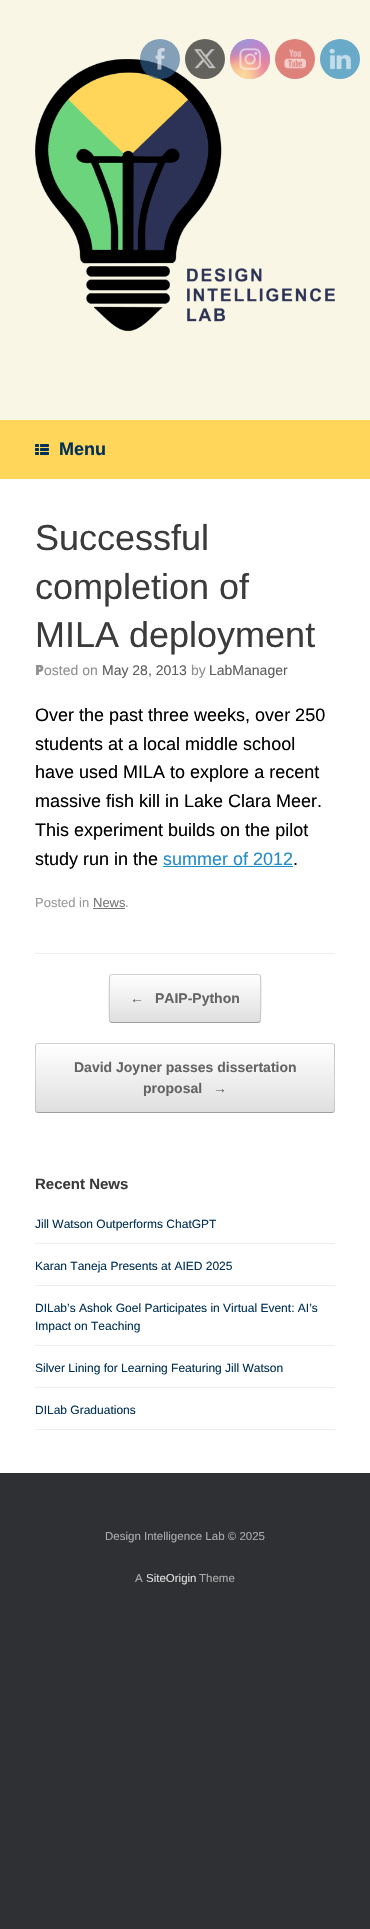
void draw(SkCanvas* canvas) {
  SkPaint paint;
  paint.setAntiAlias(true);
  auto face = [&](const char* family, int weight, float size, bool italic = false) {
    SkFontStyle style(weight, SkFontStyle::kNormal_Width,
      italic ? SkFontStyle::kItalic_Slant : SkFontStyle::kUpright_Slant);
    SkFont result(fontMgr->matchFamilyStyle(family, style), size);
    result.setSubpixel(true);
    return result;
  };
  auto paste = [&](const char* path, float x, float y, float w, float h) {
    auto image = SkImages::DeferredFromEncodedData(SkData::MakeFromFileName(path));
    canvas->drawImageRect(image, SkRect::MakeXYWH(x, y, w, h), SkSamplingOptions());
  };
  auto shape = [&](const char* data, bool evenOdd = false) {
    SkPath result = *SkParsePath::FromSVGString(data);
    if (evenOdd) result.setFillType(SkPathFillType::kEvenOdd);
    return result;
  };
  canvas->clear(0xff2f3033);
  paint.setColor(0xfff9f6e5);
  canvas->drawRect(SkRect::MakeXYWH(0, 0, 370, 420), paint);
  paste("img/6.png", 35, 59, 300, 273);
  paint.setColor(0x99336699);
  canvas->drawCircle(160, 59, 20, paint);
  paste("img/1.png", 155, 48, 10, 22);
  paint.setColor(0xff64625c);
  canvas->drawCircle(205, 59, 20, paint);
  paste("img/2.png", 194, 49, 22, 20);
  {
    const SkColor colors[] = {0xffa098d5, 0xffd480b1, 0xffec8895, 0xfff8a97d, 0xfffcd99d};
    const float stops[] = {0, 0.3f, 0.5f, 0.7f, 1};
    const SkPoint ends[] = {{250, 39}, {250, 79}};
    paint.setShader(SkGradientShader::MakeLinear(ends, colors, stops, 5, SkTileMode::kClamp));
    paint.setAlpha(255);
  }
  canvas->drawCircle(250, 59, 20, paint);
  {
    const SkColor colors[] = {0xffe680a5, 0x00e680a5};
    const float stops[] = {0, 1};
    paint.setShader(SkGradientShader::MakeRadial({270, 79}, 57, colors, stops, 2, SkTileMode::kClamp));
    paint.setAlpha(255);
  }
  canvas->drawCircle(250, 59, 20, paint);
  {
    const SkColor colors[] = {0xffb687d0, 0x00b687d0};
    const float stops[] = {0, 0.5f};
    SkMatrix m = SkMatrix::Translate(254, 31).preScale(34, 68);
    paint.setShader(SkGradientShader::MakeRadial({0, 0}, 1, colors, stops, 2, SkTileMode::kClamp, 0, &m));
    paint.setAlpha(255);
  }
  canvas->drawCircle(250, 59, 20, paint);
  {
    const SkColor colors[] = {0xffb687d0, 0x00b687d0};
    const float stops[] = {0, 0.5f};
    paint.setShader(SkGradientShader::MakeRadial({270, 39}, 57, colors, stops, 2, SkTileMode::kClamp));
    paint.setAlpha(255);
  }
  canvas->drawCircle(250, 59, 20, paint);
  {
    const SkColor colors[] = {0xff9597d8, 0x009597d8};
    const float stops[] = {0, 0.5f};
    SkMatrix m = SkMatrix::Translate(238, 19).preScale(45, 85);
    paint.setShader(SkGradientShader::MakeRadial({0, 0}, 1, colors, stops, 2, SkTileMode::kClamp, 0, &m));
    paint.setAlpha(255);
  }
  canvas->drawCircle(250, 59, 20, paint);
  {
    const SkColor colors[] = {0xff9597d8, 0x009597d8};
    const float stops[] = {0, 0.5f};
    SkMatrix m = SkMatrix::Translate(230, 29).preScale(57, 71);
    paint.setShader(SkGradientShader::MakeRadial({0, 0}, 1, colors, stops, 2, SkTileMode::kClamp, 0, &m));
    paint.setAlpha(255);
  }
  canvas->drawCircle(250, 59, 20, paint);
  {
    const SkColor colors[] = {0xfffcd998, 0x00fcd998};
    const float stops[] = {0, 0.5f};
    paint.setShader(SkGradientShader::MakeRadial({230, 95}, 69, colors, stops, 2, SkTileMode::kClamp));
    paint.setAlpha(255);
  }
  canvas->drawCircle(250, 59, 20, paint);
  {
    const SkColor colors[] = {0xfffcd998, 0x00fcd998};
    const float stops[] = {0, 0.5f};
    paint.setShader(SkGradientShader::MakeRadial({244, 75}, 44, colors, stops, 2, SkTileMode::kClamp));
    paint.setAlpha(255);
  }
  canvas->drawCircle(250, 59, 20, paint);
  paste("img/3.png", 239, 48, 22, 22);
  paint.setShader(nullptr);
  paint.setColor(0xffde817a);
  canvas->drawCircle(295, 59, 20, paint);
  paste("img/4.png", 284, 49, 22, 20);
  paint.setColor(0xff68aac8);
  canvas->drawCircle(340, 59, 20, paint);
  paste("img/5.png", 329, 48, 22, 22);
  paint.setColor(0xffffd55a);
  canvas->drawRect(SkRect::MakeXYWH(0, 420, 370, 59), paint);
  paste("img/7.png", 35, 444, 14, 11);
  {
    const struct { float x, y, w, h; SkColor color; } items[] = {
      {0, 479, 370, 994, 0xffffffff},
      {35, 953, 300, 1, 0xffeeeeee},
      {163, 866, 130, 1, 0xff248cc8},
      {93, 908, 32, 1, 0xff777777},
    };
    for (auto [x, y, w, h, color] : items) {
      paint.setColor(color);
      canvas->drawRect(SkRect::MakeXYWH(x, y, w, h), paint);
    }
  }
  canvas->save();
  canvas->clipPath(shape("M112 974H258C259.5 974 261 975.5 261 977V1020C261 1021.5 259.5 1023 258 1023H112C110.5 1023 109 1021.5 109 1020V977C109 975.5 110.5 974 112 974Z"), true);
  {
    const SkColor colors[] = {0xffdfdfdf, 0xffffffff};
    const float stops[] = {0, 1};
    const SkPoint ends[] = {{110, 1022}, {110, 975}};
    paint.setShader(SkGradientShader::MakeLinear(ends, colors, stops, 2, SkTileMode::kClamp));
    paint.setAlpha(255);
  }
  canvas->drawRect(SkRect::MakeXYWH(109, 975, 152, 47), paint);
  canvas->restore();
  paint.setStroke(true);
  paint.setStrokeWidth(1);
  paint.setShader(nullptr);
  paint.setColor(0xffd2d2d2);
  canvas->drawPath(shape("M110 975L112 974.5H258L260 975"), paint);
  paint.setColor(0xffc3c3c3);
  canvas->drawPath(shape("M260 975L260.5 977C261 981 261 1020.5 260 1022"), paint);
  paint.setColor(0xff9f9f9f);
  canvas->drawPath(shape("M260 1022L258 1022.5H112L110 1022"), paint);
  paint.setColor(0xffc3c3c3);
  canvas->drawPath(shape("M110 1022L109.5 1020C109 1016 109 976.5 110 975"), paint);
  canvas->save();
  canvas->clipPath(shape("M38 1043H332C333.5 1043 335 1044.5 335 1046V1110C335 1111.5 333.5 1113 332 1113H38C36.5 1113 35 1111.5 35 1110V1046C35 1044.5 36.5 1043 38 1043Z"), true);
  paint.setStroke(false);
  {
    const SkColor colors[] = {0xffdfdfdf, 0xffffffff};
    const float stops[] = {0, 1};
    const SkPoint ends[] = {{36, 1112}, {36, 1044}};
    paint.setShader(SkGradientShader::MakeLinear(ends, colors, stops, 2, SkTileMode::kClamp));
    paint.setAlpha(255);
  }
  canvas->drawRect(SkRect::MakeXYWH(35, 1044, 300, 68), paint);
  canvas->restore();
  paint.setStroke(true);
  paint.setShader(nullptr);
  paint.setColor(0xffd2d2d2);
  canvas->drawPath(shape("M36 1044L38 1043.5H332L334 1044"), paint);
  canvas->save();
  canvas->clipRect(SkRect::MakeXYWH(35, 974, 300, 159));
  paint.setColor(0xffc3c3c3);
  canvas->drawPath(shape("M334 1044L334.5 1046V1056.5C334.5 1063 335.5 1109.5 334 1111.5V1112"), paint);
  canvas->restore();
  paint.setColor(0xff9f9f9f);
  canvas->drawPath(shape("M334 1112L332 1112.5H38L36 1112"), paint);
  canvas->save();
  canvas->clipRect(SkRect::MakeXYWH(35, 974, 300, 159));
  paint.setColor(0xffc3c3c3);
  canvas->drawPath(shape("M36 1112L35.5 1110V1099.5C35.5 1093 34.5 1046.5 36 1044.5V1044"), paint);
  canvas->restore();
  paint.setStroke(false);
  {
    const struct { float x, y, w, h; SkColor color; } items[] = {
      {35, 1243, 300, 1, 0xffeeeeee},
      {35, 1285, 300, 1, 0xffeeeeee},
      {35, 1345, 300, 1, 0xffeeeeee},
      {35, 1387, 300, 1, 0xffeeeeee},
      {35, 1429, 300, 1, 0xffeeeeee},
    };
    for (auto [x, y, w, h, color] : items) {
      paint.setColor(color);
      canvas->drawRect(SkRect::MakeXYWH(x, y, w, h), paint);
    }
  }
  auto f0 = face("Liberation Sans", 700, 18);
  paint.setColor(0xff003057);
  canvas->drawString("Menu", 59, 455, f0, paint);
  auto f1 = face("Liberation Sans", 400, 36);
  paint.setColor(0xff3b3b3b);
  {
    const struct { const char* s; float x, y; } items[] = {
      {"Successful", 35, 550},
      {"completion of", 35, 599},
      {"MILA deployment", 35, 647},
    };
    for (auto [s, x, y] : items) {
      canvas->drawString(s, x, y, f1, paint);
    }
  }
  auto f2 = face("Noto Sans", 900, 14);
  paint.setColor(0xff8f8f8f);
  canvas->drawString("P", 35, 675, f2, paint);
  auto f3 = face("Liberation Sans", 400, 14);
  canvas->drawString("osted on", 44, 675, f3, paint);
  paint.setColor(0xff5e5e5e);
  canvas->drawString("May 28, 2013", 102, 675, f3, paint);
  paint.setColor(0xff8f8f8f);
  canvas->drawString("by", 191, 675, f3, paint);
  paint.setColor(0xff5e5e5e);
  canvas->drawString("LabManager", 209, 675, f3, paint);
  auto f4 = face("Liberation Sans", 400, 18);
  paint.setColor(0xff000000);
  {
    const struct { const char* s; float x, y; } items[] = {
      {"Over the past three weeks, over 250", 35, 721},
      {"students at a local middle school", 35, 750},
      {"have used MILA to explore a recent", 35, 778},
      {"massive fish kill in Lake Clara Meer.", 35, 807},
      {"This experiment builds on the pilot", 35, 836},
      {"study run in the", 35, 865},
    };
    for (auto [s, x, y] : items) {
      canvas->drawString(s, x, y, f4, paint);
    }
  }
  paint.setColor(0xff248cc8);
  canvas->drawString("summer of 2012", 163, 865, f4, paint);
  paint.setColor(0xff000000);
  canvas->drawString(".", 293, 865, f4, paint);
  auto f5 = face("Liberation Sans", 400, 13);
  paint.setColor(0xff999999);
  canvas->drawString("Posted in", 35, 907, f5, paint);
  paint.setColor(0xff777777);
  canvas->drawString("News", 93, 907, f5, paint);
  paint.setColor(0xff999999);
  canvas->drawString(".", 125, 907, f5, paint);
  auto f6 = face("Liberation Sans", 700, 14);
  paint.setColor(0xff646464);
  {
    const struct { const char* s; float x, y; } items[] = {
      {"←", 130, 1003},
      {"PAIP-Python", 155, 1003},
      {"David Joyner passes dissertation", 74, 1072},
      {"proposal", 143, 1093},
      {"→", 213, 1093},
    };
    for (auto [s, x, y] : items) {
      canvas->drawString(s, x, y, f6, paint);
    }
  }
  auto f7 = face("Liberation Sans", 700, 15);
  paint.setColor(0xff3b3b3b);
  canvas->drawString("Recent News", 35, 1189, f7, paint);
  auto f8 = face("Liberation Sans", 400, 12);
  paint.setColor(0xff003057);
  {
    const struct { const char* s; float x, y; } items[] = {
      {"Jill Watson Outperforms ChatGPT", 35, 1228},
      {"Karan Taneja Presents at AIED 2025", 35, 1270},
      {"DILab’s Ashok Goel Participates in Virtual Event: AI’s", 35, 1312},
      {"Impact on Teaching", 35, 1330},
      {"Silver Lining for Learning Featuring Jill Watson", 35, 1372},
      {"DILab Graduations", 35, 1414},
    };
    for (auto [s, x, y] : items) {
      canvas->drawString(s, x, y, f8, paint);
    }
  }
  auto f9 = face("Liberation Sans", 400, 11.5f);
  paint.setColor(0xffaaaaaa);
  canvas->drawString("Design Intelligence Lab © 2025", 105, 1540, f9, paint);
  canvas->drawString("A", 135, 1582, f9, paint);
  paint.setColor(0xffdddddd);
  canvas->drawString("SiteOrigin", 146, 1582, f9, paint);
  paint.setColor(0xffaaaaaa);
  canvas->drawString("Theme", 199, 1582, f9, paint);
}
